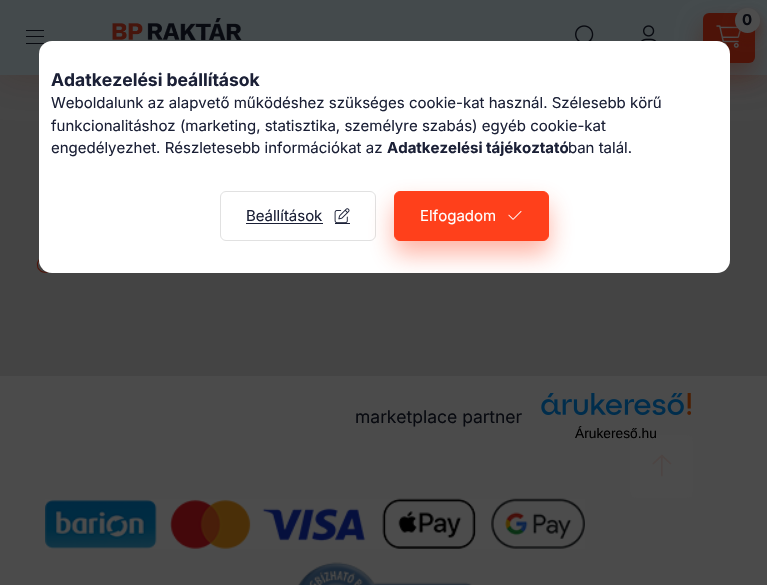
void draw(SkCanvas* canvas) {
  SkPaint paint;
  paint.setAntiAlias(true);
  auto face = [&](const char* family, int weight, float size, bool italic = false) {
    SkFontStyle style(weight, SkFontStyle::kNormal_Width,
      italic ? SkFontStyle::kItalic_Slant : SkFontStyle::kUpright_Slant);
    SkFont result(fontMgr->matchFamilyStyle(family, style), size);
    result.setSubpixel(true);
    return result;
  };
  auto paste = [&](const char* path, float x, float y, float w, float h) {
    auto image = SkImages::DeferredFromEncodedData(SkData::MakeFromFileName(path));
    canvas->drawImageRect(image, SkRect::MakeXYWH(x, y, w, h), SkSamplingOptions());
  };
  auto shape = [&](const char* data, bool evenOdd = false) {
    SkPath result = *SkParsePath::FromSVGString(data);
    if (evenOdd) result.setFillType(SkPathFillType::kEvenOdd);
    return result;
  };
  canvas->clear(0xff4b4b4b);
  paint.setColor(0xff444444);
  canvas->drawRect(SkRect::MakeXYWH(0, 75, 767, 301), paint);
  paint.setColor(0x334d1308);
  paint.setMaskFilter(SkMaskFilter::MakeBlur(kNormal_SkBlurStyle, 19));
  canvas->drawRect(SkRect::MakeXYWH(0, 0, 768, 75), paint);
  paint.setMaskFilter(nullptr);
  {
    const struct { float x, y, w, h; SkColor color; } items[] = {
      {0, 0, 767, 75, 0xff444a4c},
      {26, 30, 18, 1, 0xff080a10},
      {26, 36, 18, 1, 0xff080a10},
      {26, 43, 18, 1, 0xff080a10},
    };
    for (auto [x, y, w, h, color] : items) {
      paint.setColor(color);
      canvas->drawRect(SkRect::MakeXYWH(x, y, w, h), paint);
    }
  }
  paste("img/1.png", 112, 18, 130, 22);
  paint.setColor(0x664d1308);
  paint.setMaskFilter(SkMaskFilter::MakeBlur(kNormal_SkBlurStyle, 12.5f));
  canvas->drawRoundRect(SkRect::MakeXYWH(703, 25, 52, 50), 6, 6, paint);
  paint.setMaskFilter(nullptr);
  paint.setColor(0xff4d1308);
  canvas->drawRoundRect(SkRect::MakeXYWH(703, 13, 52, 50), 6, 6, paint);
  paste("img/2.png", 716, 25, 25, 23);
  paint.setColor(0x664d1308);
  paint.setMaskFilter(SkMaskFilter::MakeBlur(kNormal_SkBlurStyle, 6));
  canvas->drawRoundRect(SkRect::MakeXYWH(735, 14, 25, 25), 12.5f, 12.5f, paint);
  paint.setMaskFilter(nullptr);
  paint.setColor(0xff4d4d4d);
  canvas->drawCircle(747.5f, 20.5f, 12.5f, paint);
  paste("img/3.png", 575, 25, 19, 16);
  paste("img/4.png", 641, 25, 16, 16);
  paste("img/5.png", 36, 259, 13, 14);
  paste("img/6.png", 541, 393, 150, 22);
  paste("img/7.png", 45, 498, 540, 51);
  paste("img/8.png", 298, 562, 174, 23);
  paint.setColor(0xffffffff);
  canvas->drawRoundRect(SkRect::MakeXYWH(39, 41, 691, 232), 13, 13, paint);
  paint.setStroke(true);
  paint.setStrokeWidth(1);
  paint.setColor(0xffe1e1e1);
  canvas->drawRoundRect(SkRect::MakeXYWH(220.5f, 191.5f, 155, 49), 5.5f, 5.5f, paint);
  paint.setStroke(false);
  paint.setColor(0xff1b2036);
  canvas->drawRect(SkRect::MakeXYWH(246, 223, 77, 1), paint);
  paste("img/9.png", 334, 208, 16, 15);
  canvas->drawRect(SkRect::MakeXYWH(335, 223, 15, 1), paint);
  canvas->save();
  canvas->clipPath(shape("M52 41H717C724 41 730 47 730 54V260C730 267 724 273 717 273H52C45 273 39 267 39 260V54C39 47 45 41 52 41Z"), true);
  paint.setColor(0x66ff401b);
  paint.setMaskFilter(SkMaskFilter::MakeBlur(kNormal_SkBlurStyle, 12.5f));
  canvas->drawRoundRect(SkRect::MakeXYWH(394, 204, 155, 50), 6, 6, paint);
  paint.setMaskFilter(nullptr);
  canvas->restore();
  paint.setColor(0xffff401b);
  canvas->drawRoundRect(SkRect::MakeXYWH(394.5f, 191.5f, 154, 49), 5.5f, 5.5f, paint);
  paint.setStroke(true);
  canvas->drawRoundRect(SkRect::MakeXYWH(394.5f, 191.5f, 154, 49), 5.5f, 5.5f, paint);
  paste("img/10.png", 508, 211, 14, 9);
  paint.setStroke(false);
  paint.setColor(0x244d4d4d);
  canvas->drawRoundRect(SkRect::MakeXYWH(630, 435, 63, 63), 6, 6, paint);
  paste("img/11.png", 652, 454, 20, 23);
  auto f0 = face("Inter", 700, 15);
  paint.setColor(0xff080a10);
  canvas->drawString("0", 742, 25, f0, paint);
  auto f1 = face("Inter", 400, 17.5f);
  canvas->drawString("marketplace partner", 355, 423, f1, paint);
  auto f2 = face("Liberation Sans", 400, 13.75f);
  paint.setColor(0xff000000);
  canvas->drawString("Árukereső.hu", 575, 438, f2, paint);
  auto f3 = face("Inter", 700, 17.5f);
  paint.setColor(0xff1b2036);
  canvas->drawString("Adatkezelési beállítások", 51, 86, f3, paint);
  auto f4 = face("Inter", 400, 15);
  {
    const struct { const char* s; float x, y; } items[] = {
      {"Weboldalunk az alapvető működéshez szükséges cookie-kat használ. Szélesebb körű", 51, 108},
      {"funkcionalitáshoz (marketing, statisztika, személyre szabás) egyéb cookie-kat", 51, 131},
      {"engedélyezhet. Részletesebb információkat az", 51, 153},
    };
    for (auto [s, x, y] : items) {
      canvas->drawString(s, x, y, f4, paint);
    }
  }
  canvas->drawString("Adatkezelési tájékoztató", 387, 153, f0, paint);
  canvas->drawString("ban talál.", 568, 153, f4, paint);
  canvas->drawString("Beállítások", 246, 221, f4, paint);
  paint.setColor(0xffffffff);
  canvas->drawString("Elfogadom", 420, 221, f4, paint);
}
